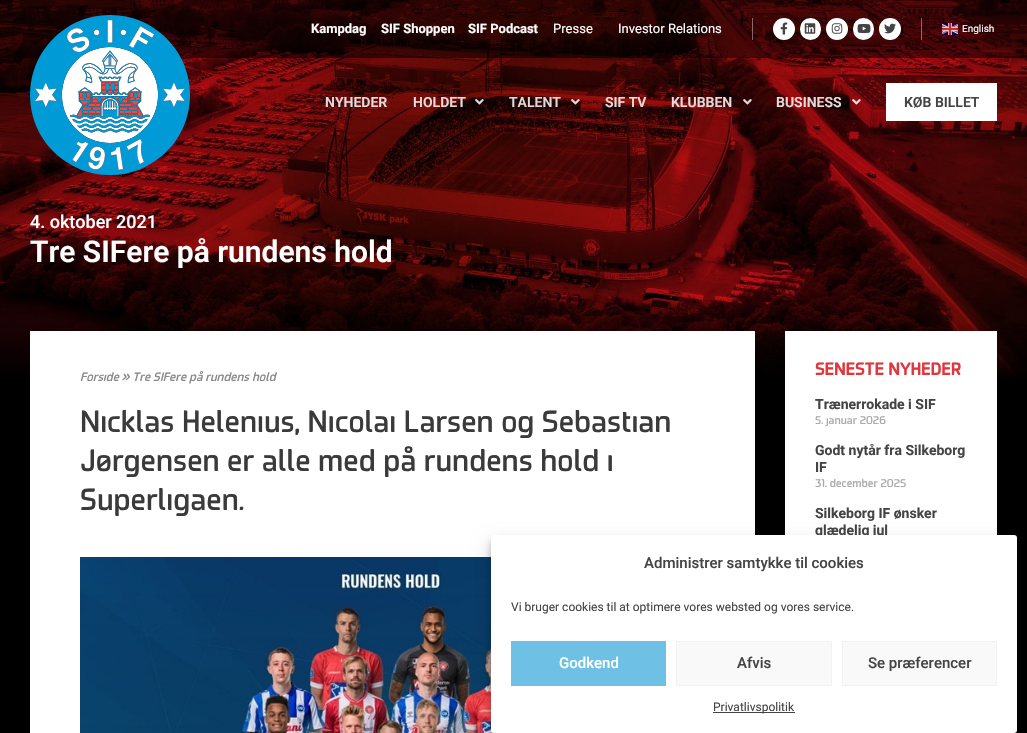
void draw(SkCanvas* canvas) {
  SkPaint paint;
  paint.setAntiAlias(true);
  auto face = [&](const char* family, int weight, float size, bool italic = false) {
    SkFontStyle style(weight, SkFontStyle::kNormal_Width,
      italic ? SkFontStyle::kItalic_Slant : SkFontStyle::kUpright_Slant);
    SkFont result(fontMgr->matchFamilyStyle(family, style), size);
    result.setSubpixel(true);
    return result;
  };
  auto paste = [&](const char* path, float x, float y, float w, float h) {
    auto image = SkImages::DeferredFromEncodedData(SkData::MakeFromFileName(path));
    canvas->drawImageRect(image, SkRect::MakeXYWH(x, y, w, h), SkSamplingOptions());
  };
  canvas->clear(0xff000000);
  paste("img/12.png", 0, 0, 1027, 381);
  paint.setColor(0x80000000);
  canvas->drawRect(SkRect::MakeXYWH(0, 0, 1027, 58), paint);
  paste("img/1.png", 30, 15, 160, 160);
  paint.setColor(0x66ffffff);
  canvas->drawRect(SkRect::MakeXYWH(921, 18, 1, 22), paint);
  canvas->drawRect(SkRect::MakeXYWH(752, 18, 1, 22), paint);
  paint.setColor(0xffffffff);
  canvas->drawCircle(784, 29, 11, paint);
  paste("img/2.png", 780, 22, 8, 13);
  canvas->drawRoundRect(SkRect::MakeXYWH(800, 18, 21, 22), 10.5f, 10.5f, paint);
  paste("img/3.png", 804, 23, 12, 11);
  canvas->drawCircle(837, 29, 11, paint);
  paste("img/4.png", 831, 23, 12, 11);
  canvas->drawRoundRect(SkRect::MakeXYWH(853, 18, 21, 22), 10.5f, 10.5f, paint);
  paste("img/5.png", 857, 24, 14, 9);
  canvas->drawCircle(890, 29, 11, paint);
  paste("img/6.png", 884, 23, 12, 11);
  paste("img/7.png", 942, 23, 16, 12);
  paste("img/8.png", 475, 99, 9, 6);
  paste("img/9.png", 571, 99, 9, 6);
  paste("img/10.png", 743, 99, 9, 6);
  paste("img/11.png", 852, 99, 9, 6);
  canvas->drawRect(SkRect::MakeXYWH(886, 83, 111, 38), paint);
  canvas->drawRect(SkRect::MakeXYWH(30, 331, 725, 402), paint);
  paste("img/13.png", 80, 557, 414, 176);
  canvas->drawRect(SkRect::MakeXYWH(785, 331, 212, 204), paint);
  paint.setColor(0x3b000000);
  paint.setMaskFilter(SkMaskFilter::MakeBlur(kNormal_SkBlurStyle, 3));
  canvas->drawRoundRect(SkRect::MakeXYWH(491, 541, 526, 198), 3, 3, paint);
  paint.setMaskFilter(nullptr);
  paint.setColor(0x30000000);
  paint.setMaskFilter(SkMaskFilter::MakeBlur(kNormal_SkBlurStyle, 10));
  canvas->drawRoundRect(SkRect::MakeXYWH(491, 545, 526, 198), 3, 3, paint);
  paint.setMaskFilter(nullptr);
  auto f0 = face("Roboto", 700, 13);
  paint.setColor(0xffffffff);
  {
    const struct { const char* s; float x, y; } items[] = {
      {"Kampdag", 311, 33},
      {"SIF Shoppen", 381, 33},
      {"SIF Podcast", 468, 33},
    };
    for (auto [s, x, y] : items) {
      canvas->drawString(s, x, y, f0, paint);
    }
  }
  auto f1 = face("Roboto", 400, 13);
  canvas->drawString("Presse", 553, 33, f1, paint);
  canvas->drawString("Investor Relations", 618, 33, f1, paint);
  auto f2 = face("Roboto", 400, 10);
  canvas->drawString("English", 962, 32, f2, paint);
  auto f3 = face("Roboto", 600, 14);
  paint.setColor(0xffe6dada);
  canvas->drawString("NYHEDER", 325, 107, f3, paint);
  canvas->drawString("HOLDET", 413, 107, f3, paint);
  paint.setColor(0xffdfd9d9);
  canvas->drawString("TALENT", 509, 107, f3, paint);
  paint.setColor(0xffe6dada);
  {
    const struct { const char* s; float x, y; } items[] = {
      {"SIF TV", 605, 107},
      {"KLUBBEN", 671, 107},
      {"BUSINESS", 776, 107},
    };
    for (auto [s, x, y] : items) {
      canvas->drawString(s, x, y, f3, paint);
    }
  }
  paint.setColor(0xff444444);
  canvas->drawString("KØB BILLET", 904, 107, f3, paint);
  auto f4 = face("Roboto", 500, 18);
  paint.setColor(0xffffffff);
  canvas->drawString("4. oktober 2021", 30, 228, f4, paint);
  auto f5 = face("Roboto", 600, 30);
  canvas->drawString("Tre SIFere på rundens hold", 30, 262, f5, paint);
  auto f6 = face("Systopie", 400, 12, true);
  paint.setColor(0xff888888);
  canvas->drawString("Forside » Tre SIFere på rundens hold", 80, 381, f6, paint);
  auto f7 = face("Systopie", 400, 30);
  paint.setColor(0xff3a3a3a);
  {
    const struct { const char* s; float x, y; } items[] = {
      {"Nicklas Helenius, Nicolai Larsen og Sebastian", 80, 432},
      {"Jørgensen er alle med på rundens hold i", 80, 471},
      {"Superligaen.", 80, 510},
    };
    for (auto [s, x, y] : items) {
      canvas->drawString(s, x, y, f7, paint);
    }
  }
  auto f8 = face("Systopie", 700, 17);
  paint.setColor(0xffdf373d);
  canvas->drawString("SENESTE NYHEDER", 815, 375, f8, paint);
  auto f9 = face("Roboto", 700, 14);
  paint.setColor(0xff444444);
  canvas->drawString("Trænerrokade i SIF", 815, 409, f9, paint);
  auto f10 = face("Systopie", 400, 11);
  paint.setColor(0xffaaaaaa);
  canvas->drawString("5. januar 2026", 815, 424, f10, paint);
  paint.setColor(0xff444444);
  canvas->drawString("Godt nytår fra Silkeborg", 815, 455, f9, paint);
  canvas->drawString("IF", 815, 472, f9, paint);
  paint.setColor(0xffaaaaaa);
  canvas->drawString("31. december 2025", 815, 487, f10, paint);
  paint.setColor(0xff444444);
  canvas->drawString("Silkeborg IF ønsker", 815, 518, f9, paint);
  canvas->drawString("glædelig jul", 815, 535, f9, paint);
  paint.setColor(0xffffffff);
  canvas->drawRoundRect(SkRect::MakeXYWH(491, 535, 526, 198), 3, 3, paint);
  auto f11 = face("Roboto", 500, 15);
  paint.setColor(0xff444444);
  canvas->drawString("Administrer samtykke til cookies", 644, 568, f11, paint);
  auto f12 = face("Roboto", 400, 12);
  canvas->drawString("Vi bruger cookies til at optimere vores websted og vores service.", 511, 611, f12, paint);
  paint.setColor(0xff6ec1e4);
  canvas->drawRect(SkRect::MakeXYWH(511, 641, 155, 45), paint);
  paint.setColor(0xffffffff);
  canvas->drawString("Godkend", 559, 668, f11, paint);
  paint.setColor(0xfff9f9f9);
  canvas->drawRect(SkRect::MakeXYWH(676.5f, 641.5f, 155, 44), paint);
  paint.setStroke(true);
  paint.setStrokeWidth(1);
  paint.setColor(0xfff2f2f2);
  canvas->drawRect(SkRect::MakeXYWH(676.5f, 641.5f, 155, 44), paint);
  paint.setStroke(false);
  paint.setColor(0xff444444);
  canvas->drawString("Afvis", 737, 668, f11, paint);
  paint.setColor(0xfff9f9f9);
  canvas->drawRect(SkRect::MakeXYWH(842.5f, 641.5f, 154, 44), paint);
  paint.setStroke(true);
  paint.setColor(0xfff2f2f2);
  canvas->drawRect(SkRect::MakeXYWH(842.5f, 641.5f, 154, 44), paint);
  paint.setStroke(false);
  paint.setColor(0xff444444);
  canvas->drawString("Se præferencer", 868, 668, f11, paint);
  canvas->drawRect(SkRect::MakeXYWH(713, 712, 82, 1), paint);
  canvas->drawString("Privatlivspolitik", 713, 711, f12, paint);
}
